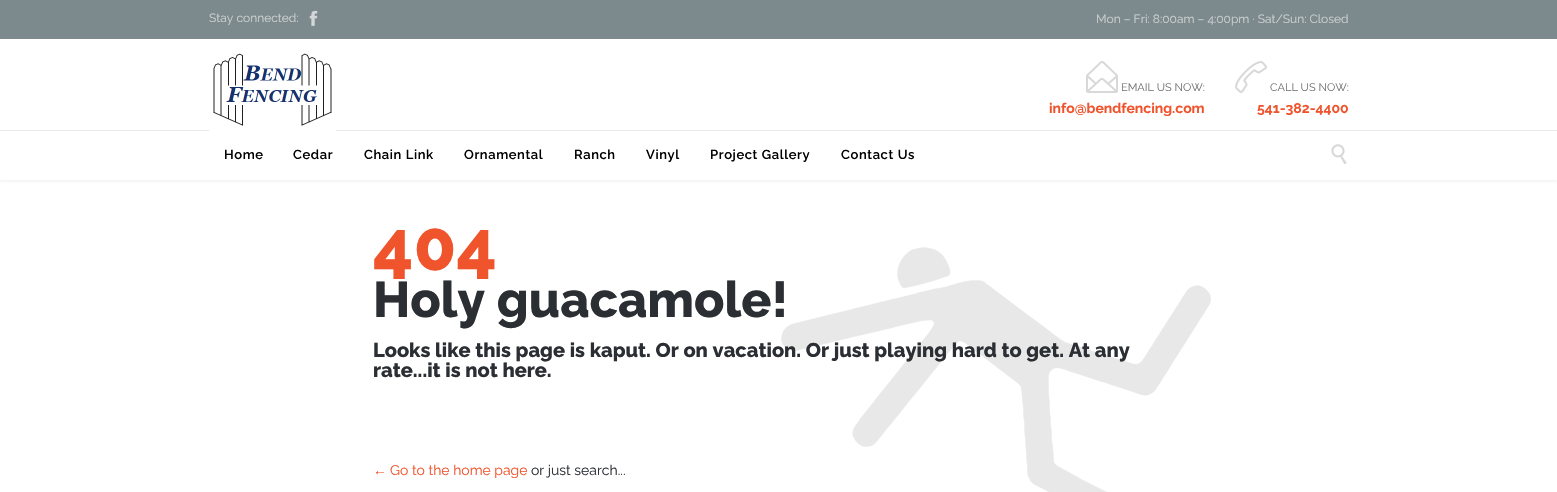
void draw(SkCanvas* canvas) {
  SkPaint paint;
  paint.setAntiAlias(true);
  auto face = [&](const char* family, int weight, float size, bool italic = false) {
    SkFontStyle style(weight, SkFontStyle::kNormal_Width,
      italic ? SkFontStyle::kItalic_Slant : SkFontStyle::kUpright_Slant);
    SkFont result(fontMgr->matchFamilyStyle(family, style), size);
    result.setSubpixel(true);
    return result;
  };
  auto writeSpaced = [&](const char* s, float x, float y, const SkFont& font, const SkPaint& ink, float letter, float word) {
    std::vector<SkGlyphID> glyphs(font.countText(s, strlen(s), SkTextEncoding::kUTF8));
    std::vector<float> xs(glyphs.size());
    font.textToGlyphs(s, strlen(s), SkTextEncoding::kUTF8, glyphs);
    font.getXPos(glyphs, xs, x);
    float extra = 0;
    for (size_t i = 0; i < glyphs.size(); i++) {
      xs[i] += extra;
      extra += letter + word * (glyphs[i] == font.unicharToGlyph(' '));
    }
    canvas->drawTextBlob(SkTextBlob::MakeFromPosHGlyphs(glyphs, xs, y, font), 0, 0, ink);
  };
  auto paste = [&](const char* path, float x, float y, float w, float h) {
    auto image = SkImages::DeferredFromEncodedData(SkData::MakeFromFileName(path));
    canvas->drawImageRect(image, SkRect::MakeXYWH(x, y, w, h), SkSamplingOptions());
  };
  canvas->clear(0xffffffff);
  paint.setColor(0x0a000000);
  paint.setMaskFilter(SkMaskFilter::MakeBlur(kNormal_SkBlurStyle, 1));
  canvas->drawRect(SkRect::MakeXYWH(0, 2, 1557, 180), paint);
  paint.setMaskFilter(nullptr);
  paint.setColor(0xff7c8a8d);
  canvas->drawRect(SkRect::MakeXYWH(0, 0, 1557, 39), paint);
  paste("img/1.png", 309, 10, 9, 16);
  paint.setColor(0xffffffff);
  canvas->drawRect(SkRect::MakeXYWH(0, 39, 1557, 91), paint);
  paint.setColor(0xffeaeaeb);
  canvas->drawRect(SkRect::MakeXYWH(0, 130, 1557, 1), paint);
  paste("img/2.png", 209, 53, 127, 78);
  paste("img/3.png", 1086, 61, 32, 32);
  paste("img/4.png", 1235, 61, 32, 32);
  paint.setColor(0xffffffff);
  canvas->drawRect(SkRect::MakeXYWH(0, 131, 1557, 49), paint);
  paste("img/5.png", 1331, 144, 16, 21);
  paste("img/6.png", 781, 247, 430, 245);
  auto f0 = face("Raleway", 400, 12);
  paint.setColor(0xffccd0d0);
  canvas->drawString("Stay connected:", 209, 22, f0, paint);
  canvas->drawString("Mon – Fri: 8:00am – 4:00pm · Sat/Sun: Closed", 1096, 23, f0, paint);
  auto f1 = face("Raleway", 400, 11);
  paint.setColor(0xff767676);
  canvas->drawString("EMAIL US NOW:", 1121, 91, f1, paint);
  auto f2 = face("Raleway", 700, 14);
  paint.setColor(0xfff0542d);
  canvas->drawString("info@bendfencing.com", 1049, 113, f2, paint);
  paint.setColor(0xff767676);
  canvas->drawString("CALL US NOW:", 1270, 91, f1, paint);
  paint.setColor(0xfff0542d);
  canvas->drawString("541-382-4400", 1257, 113, f2, paint);
  auto f3 = face("Raleway", 600, 13);
  paint.setColor(0xff000000);
  {
    const struct { const char* s; float x, y; } items[] = {
      {"Home", 224, 159},
      {"Cedar", 293, 159},
      {"Chain Link", 364, 159},
      {"Ornamental", 464, 159},
      {"Ranch", 574, 159},
      {"Vinyl", 646, 159},
      {"Project Gallery", 710, 159},
      {"Contact Us", 841, 159},
    };
    for (auto [s, x, y] : items) {
      writeSpaced(s, x, y, f3, paint, 0.6f, 0);
    }
  }
  auto f4 = face("Raleway", 800, 70);
  paint.setColor(0xfff0542d);
  canvas->drawString("404", 373, 270, f4, paint);
  auto f5 = face("Raleway", 800, 50);
  paint.setColor(0xff2b2f34);
  canvas->drawString("Holy guacamole!", 373, 317, f5, paint);
  auto f6 = face("Raleway", 800, 20);
  canvas->drawString("Looks like this page is kaput. Or on vacation. Or just playing hard to get. At any", 373, 357, f6, paint);
  canvas->drawString("rate...it is not here.", 373, 377, f6, paint);
  auto f7 = face("Liberation Serif", 400, 14);
  paint.setColor(0xfff0542d);
  canvas->drawString("←", 373, 475, f7, paint);
  auto f8 = face("Raleway", 400, 14);
  canvas->drawString("Go to the home page", 390, 475, f8, paint);
  paint.setColor(0xff2b2f34);
  canvas->drawString("or just search...", 531, 475, f8, paint);
}
